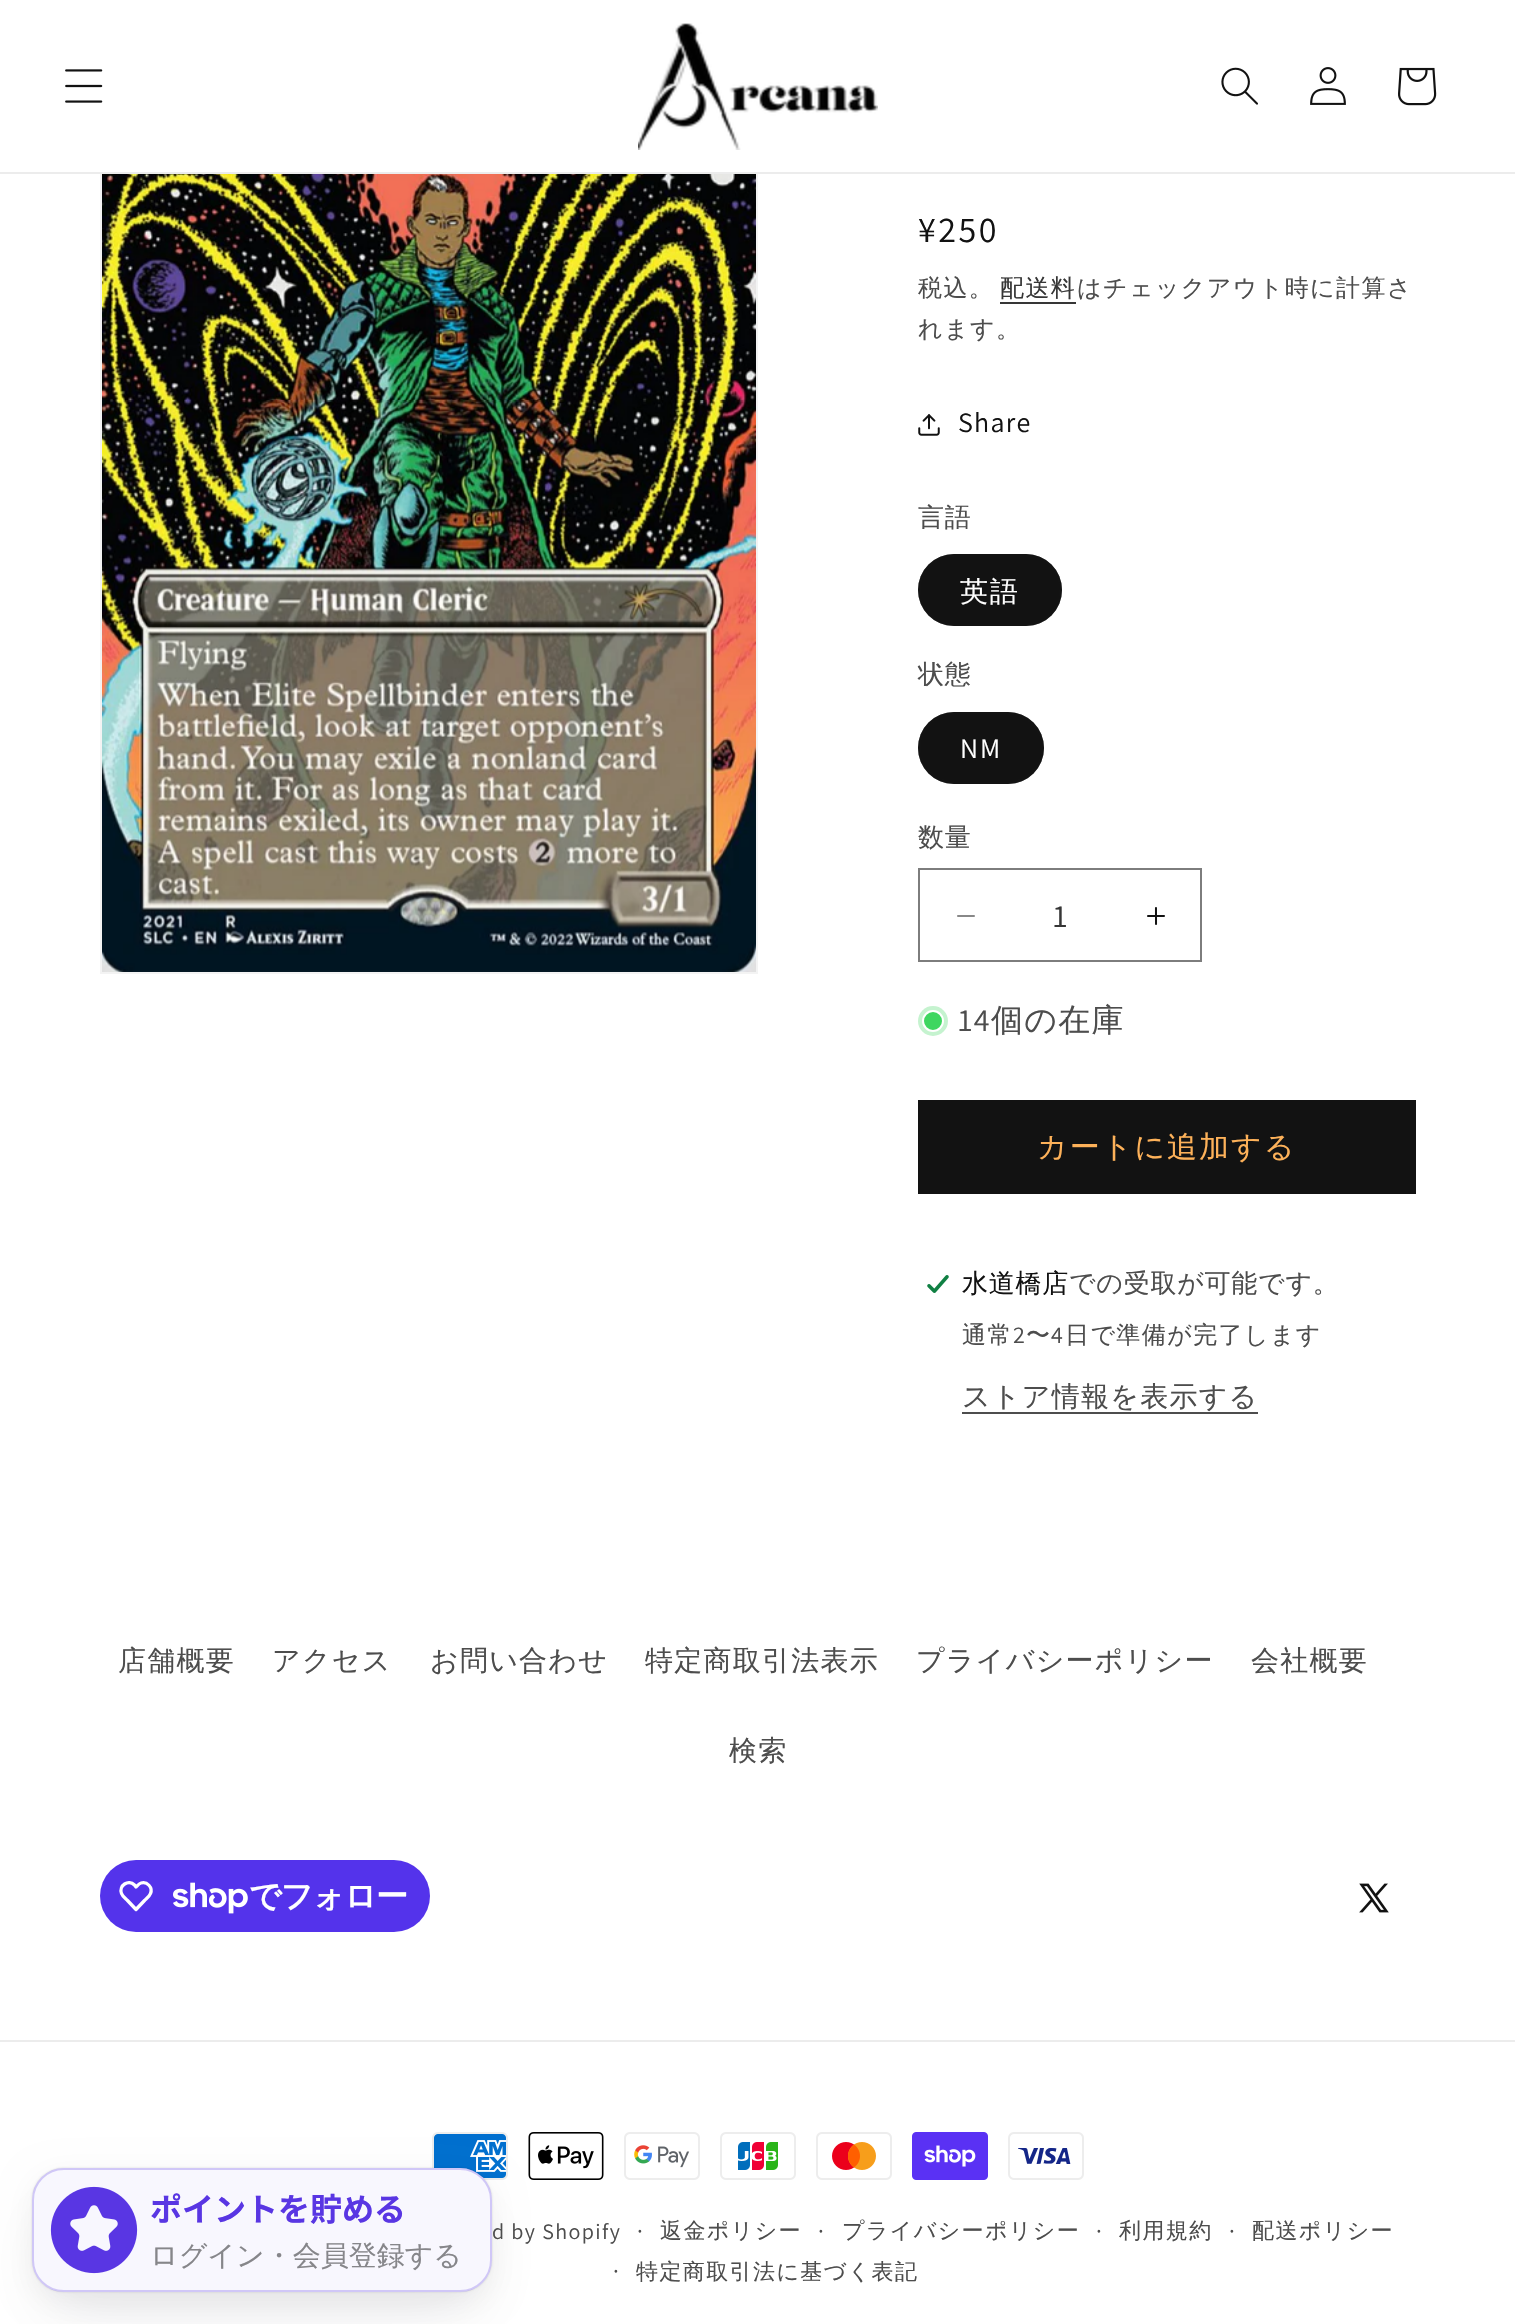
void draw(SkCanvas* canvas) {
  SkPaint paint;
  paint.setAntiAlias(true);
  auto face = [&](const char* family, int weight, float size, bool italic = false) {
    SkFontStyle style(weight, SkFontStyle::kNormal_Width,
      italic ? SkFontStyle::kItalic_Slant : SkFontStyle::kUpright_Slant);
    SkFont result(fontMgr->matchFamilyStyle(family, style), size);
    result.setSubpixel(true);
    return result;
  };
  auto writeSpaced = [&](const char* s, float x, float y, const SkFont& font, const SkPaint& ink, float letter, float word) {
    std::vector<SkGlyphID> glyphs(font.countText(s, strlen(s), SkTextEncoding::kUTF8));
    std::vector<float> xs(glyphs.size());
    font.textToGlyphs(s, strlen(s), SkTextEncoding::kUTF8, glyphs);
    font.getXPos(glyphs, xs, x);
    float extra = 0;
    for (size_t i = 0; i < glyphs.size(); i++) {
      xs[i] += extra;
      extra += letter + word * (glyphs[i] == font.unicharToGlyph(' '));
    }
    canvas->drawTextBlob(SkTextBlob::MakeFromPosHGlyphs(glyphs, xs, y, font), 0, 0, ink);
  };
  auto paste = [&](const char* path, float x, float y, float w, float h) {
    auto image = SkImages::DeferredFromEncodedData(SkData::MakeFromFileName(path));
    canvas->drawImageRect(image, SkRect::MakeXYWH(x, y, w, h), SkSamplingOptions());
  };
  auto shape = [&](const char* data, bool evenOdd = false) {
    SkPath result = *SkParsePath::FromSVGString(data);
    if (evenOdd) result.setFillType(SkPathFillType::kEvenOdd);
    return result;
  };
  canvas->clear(0xffffffff);
  paint.setStroke(true);
  paint.setStrokeWidth(2);
  paint.setColor(0xfff3f3f3);
  canvas->drawRect(SkRect::MakeXYWH(101, 61, 656, 912), paint);
  paint.setStroke(false);
  paint.setColor(0xffffffff);
  canvas->drawRect(SkRect::MakeXYWH(100, 60, 658, 112), paint);
  paint.setColor(0xffececec);
  canvas->drawRect(SkRect::MakeXYWH(0, 172, 1515, 2), paint);
  paste("img/1.png", 65, 69, 38, 34);
  paste("img/2.png", 638, 23, 240, 127);
  paste("img/3.png", 1221, 67, 37, 38);
  paste("img/4.png", 1310, 67, 36, 38);
  paste("img/5.png", 1398, 67, 39, 39);
  paste("img/6.png", 102, 174, 654, 798);
  paint.setColor(0xff363636);
  canvas->drawRect(SkRect::MakeXYWH(1000, 302, 76, 2), paint);
  paste("img/7.png", 918, 414, 22, 22);
  paint.setColor(0xff121212);
  canvas->drawRoundRect(SkRect::MakeXYWH(918, 554, 144, 72), 36, 36, paint);
  paint.setStroke(true);
  paint.setColor(0x8c121212);
  canvas->drawRoundRect(SkRect::MakeXYWH(919, 555, 142, 70), 35, 35, paint);
  paint.setStroke(false);
  paint.setColor(0xff121212);
  canvas->drawRoundRect(SkRect::MakeXYWH(918, 712, 126, 72), 36, 36, paint);
  paint.setStroke(true);
  paint.setColor(0x8c121212);
  canvas->drawRoundRect(SkRect::MakeXYWH(919, 713, 124, 70), 35, 35, paint);
  paste("img/8.png", 957, 915, 18, 2);
  paste("img/9.png", 1147, 907, 18, 18);
  paint.setColor(0xff7d7d7d);
  canvas->drawRect(SkRect::MakeXYWH(919, 869, 282, 92), paint);
  paint.setStroke(false);
  paint.setColor(0xffc5f3cf);
  canvas->drawCircle(933, 1021, 15, paint);
  paint.setColor(0xff3ed660);
  canvas->drawCircle(933, 1021, 10, paint);
  paint.setStroke(true);
  paint.setColor(0xffffffff);
  canvas->drawCircle(933, 1021, 10, paint);
  paint.setStroke(false);
  paint.setColor(0xff121212);
  canvas->drawRect(SkRect::MakeXYWH(918, 1100, 498, 94), paint);
  paste("img/10.png", 927, 1275, 22, 18);
  paint.setColor(0xff4d4d4d);
  canvas->drawRect(SkRect::MakeXYWH(962, 1412, 296, 2), paint);
  paint.setColor(0xff5433eb);
  canvas->drawRoundRect(SkRect::MakeXYWH(100, 1860, 330, 72), 36, 36, paint);
  paint.setStroke(true);
  paint.setStrokeWidth(3.3f);
  paint.setStrokeJoin(SkPaint::kRound_Join);
  paint.setColor(0xffffffff);
  canvas->drawPath(shape("M134.5 1885L136 1887C137.5 1885.5 139 1883.5 141 1883C147 1881 153 1887.5 150.5 1893.5C149.5 1896.5 146.5 1898.5 144.5 1900.5L136 1909.5L127.5 1900.5C125.5 1898.5 122.5 1896.5 121.5 1893.5C118.5 1885.5 128.5 1879 134.5 1885Z"), paint);
  paste("img/11.png", 173, 1882, 75, 32);
  paste("img/12.png", 1359, 1883, 30, 30);
  paint.setStroke(false);
  paint.setColor(0xffececec);
  canvas->drawRect(SkRect::MakeXYWH(0, 2040, 1515, 2), paint);
  paste("img/13.png", 432, 2132, 76, 48);
  paste("img/14.png", 528, 2132, 76, 48);
  paste("img/15.png", 624, 2132, 76, 48);
  paste("img/16.png", 720, 2132, 76, 48);
  paste("img/17.png", 816, 2132, 76, 48);
  paste("img/18.png", 912, 2132, 76, 48);
  paste("img/19.png", 1008, 2132, 76, 48);
  paint.setColor(0x0d000000);
  paint.setMaskFilter(SkMaskFilter::MakeBlur(kNormal_SkBlurStyle, 16));
  canvas->drawRoundRect(SkRect::MakeXYWH(32, 2176, 460, 124), 32, 32, paint);
  paint.setMaskFilter(nullptr);
  paint.setColor(0x1a111826);
  paint.setMaskFilter(SkMaskFilter::MakeBlur(kNormal_SkBlurStyle, 32));
  canvas->drawRoundRect(SkRect::MakeXYWH(52, 2220, 420, 84), 12, 12, paint);
  paint.setMaskFilter(nullptr);
  paint.setColor(0x26000000);
  paint.setMaskFilter(SkMaskFilter::MakeBlur(kNormal_SkBlurStyle, 1));
  canvas->drawRoundRect(SkRect::MakeXYWH(32, 2168, 460, 124), 32, 32, paint);
  paint.setMaskFilter(nullptr);
  paint.setColor(0xfff8f7fe);
  canvas->drawRoundRect(SkRect::MakeXYWH(32, 2168, 460, 124), 32, 32, paint);
  paint.setStroke(true);
  paint.setStrokeWidth(2);
  paint.setStrokeJoin(SkPaint::kMiter_Join);
  paint.setColor(0x405936e3);
  canvas->drawRoundRect(SkRect::MakeXYWH(33, 2169, 458, 122), 31, 31, paint);
  paste("img/20.png", 50, 2186, 88, 88);
  auto f0 = face("Assistant", 400, 36);
  paint.setStroke(false);
  paint.setColor(0xff121212);
  writeSpaced("¥250", 918, 242, f0, paint, 2.5f, 0);
  auto f1 = face("WenQuanYi Zen Hei", 500, 24);
  paint.setColor(0xff4d4d4d);
  writeSpaced("税込。", 918, 296, f1, paint, 1.4f, 0);
  paint.setColor(0xff363636);
  writeSpaced("配送料", 1000, 296, f1, paint, 1.4f, 0);
  paint.setColor(0xff4d4d4d);
  writeSpaced("はチェックアウト時に計算さ", 1077, 296, f1, paint, 1.4f, 0);
  writeSpaced("れます。", 918, 337, f1, paint, 1.4f, 0);
  auto f2 = face("Assistant", 400, 28);
  paint.setColor(0xff121212);
  writeSpaced("Share", 958, 432, f2, paint, 1.25f, 0);
  auto f3 = face("WenQuanYi Zen Hei", 500, 26);
  paint.setColor(0xff4d4d4d);
  writeSpaced("言語", 918, 526, f3, paint, 0.75f, 0);
  auto f4 = face("WenQuanYi Zen Hei", 500, 28);
  paint.setColor(0xffffffff);
  writeSpaced("英語", 960, 601, f4, paint, 2, 0);
  paint.setColor(0xff4d4d4d);
  writeSpaced("状態", 918, 683, f3, paint, 0.75f, 0);
  paint.setColor(0xffffffff);
  writeSpaced("NM", 960, 758, f2, paint, 2, 0);
  paint.setColor(0xff4d4d4d);
  writeSpaced("数量", 918, 846, f3, paint, 0.75f, 0);
  auto f5 = face("Assistant", 400, 32);
  paint.setColor(0xff363636);
  canvas->drawString("1", 1053, 927, f5, paint);
  paint.setColor(0xff4d4d4d);
  writeSpaced("14", 958, 1031, f5, paint, 1.25f, 0);
  auto f6 = face("WenQuanYi Zen Hei", 500, 32);
  writeSpaced("個の在庫", 991, 1031, f6, paint, 1.25f, 0);
  auto f7 = face("WenQuanYi Zen Hei", 500, 30);
  paint.setColor(0xfffdb159);
  writeSpaced("カートに追加する", 1037, 1157, f7, paint, 2, 0);
  paint.setColor(0xff121212);
  writeSpaced("水道橋店", 962, 1292, f3, paint, 0.75f, 0);
  paint.setColor(0xff4d4d4d);
  writeSpaced("での受取が可能です。", 1069, 1292, f3, paint, 0.75f, 0);
  writeSpaced("通常", 962, 1343, f1, paint, 1.4f, 0);
  auto f8 = face("Assistant", 400, 24);
  writeSpaced("2", 1013, 1343, f8, paint, 1.4f, 0);
  writeSpaced("〜", 1026, 1343, f1, paint, 1.4f, 0);
  writeSpaced("4", 1051, 1343, f8, paint, 1.4f, 0);
  writeSpaced("日で準備が完了します", 1065, 1343, f1, paint, 1.4f, 0);
  {
    const struct { const char* s; float x, y; } items[] = {
      {"ストア情報を表示する", 962, 1406},
      {"店舗概要", 118, 1670},
      {"アクセス", 272, 1670},
      {"お問い合わせ", 430, 1670},
      {"特定商取引法表示", 645, 1670},
      {"プライバシーポリシー", 916, 1670},
      {"会社概要", 1251, 1670},
      {"検索", 729, 1760},
    };
    for (auto [s, x, y] : items) {
      writeSpaced(s, x, y, f4, paint, 1.25f, 0);
    }
  }
  auto f9 = face("WenQuanYi Zen Hei", 700, 32);
  paint.setColor(0xffffffff);
  writeSpaced("でフォロー", 249, 1907, f9, paint, -1, 0);
  auto f10 = face("Assistant", 400, 22);
  paint.setColor(0xff4d4d4d);
  writeSpaced("d by Shopify", 492, 2239, f10, paint, 1.4f, 0);
  writeSpaced("·", 637, 2239, f8, paint, 1.4f, 0);
  auto f11 = face("WenQuanYi Zen Hei", 500, 22);
  writeSpaced("返金ポリシー", 660, 2238, f11, paint, 1.4f, 0);
  writeSpaced("·", 818, 2239, f8, paint, 1.4f, 0);
  writeSpaced("プライバシーポリシー", 842, 2238, f11, paint, 1.4f, 0);
  writeSpaced("·", 1096, 2239, f8, paint, 1.4f, 0);
  writeSpaced("利用規約", 1119, 2238, f11, paint, 1.4f, 0);
  writeSpaced("·", 1229, 2239, f8, paint, 1.4f, 0);
  writeSpaced("配送ポリシー", 1252, 2238, f11, paint, 1.4f, 0);
  writeSpaced("·", 613, 2279, f8, paint, 1.4f, 0);
  writeSpaced("特定商取引法に基づく表記", 636, 2279, f11, paint, 1.4f, 0);
  auto f12 = face("Noto Sans JP", 700, 32);
  paint.setColor(0xff5936e3);
  canvas->drawString("ポイントを貯める", 150, 2221, f12, paint);
  paint.setColor(0xff86868a);
  canvas->drawString("ログイン・会員登録する", 150, 2265, f4, paint);
}
